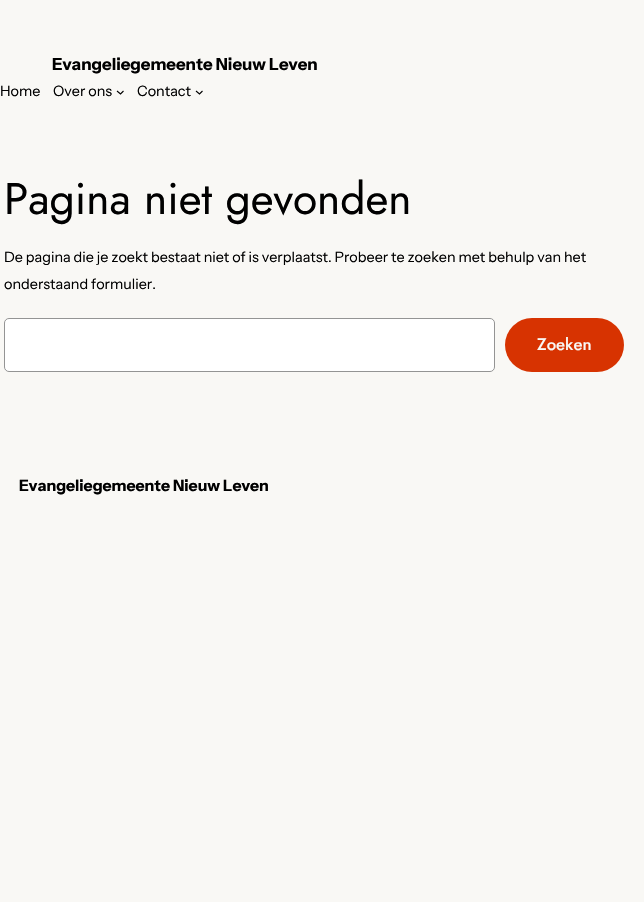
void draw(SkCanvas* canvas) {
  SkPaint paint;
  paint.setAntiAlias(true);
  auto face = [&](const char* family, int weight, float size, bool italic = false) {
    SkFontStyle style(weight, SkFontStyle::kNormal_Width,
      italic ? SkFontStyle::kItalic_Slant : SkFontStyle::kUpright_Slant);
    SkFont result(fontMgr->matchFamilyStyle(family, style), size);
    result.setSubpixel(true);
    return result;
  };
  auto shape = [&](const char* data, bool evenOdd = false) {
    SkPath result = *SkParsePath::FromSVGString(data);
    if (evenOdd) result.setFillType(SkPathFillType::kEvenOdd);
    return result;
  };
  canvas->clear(0xfff9f8f5);
  paint.setStroke(true);
  paint.setStrokeWidth(1.1f);
  paint.setColor(0xff000000);
  canvas->drawPath(shape("M117 91L120.5 94L123.5 91"), paint);
  canvas->drawPath(shape("M196 91L199.5 94L202.5 91"), paint);
  paint.setStroke(false);
  paint.setColor(0xffffffff);
  canvas->drawRoundRect(SkRect::MakeXYWH(4.5f, 318.5f, 490, 53), 4.5f, 4.5f, paint);
  paint.setStroke(true);
  paint.setStrokeWidth(1);
  paint.setColor(0xff949494);
  canvas->drawRoundRect(SkRect::MakeXYWH(4.5f, 318.5f, 490, 53), 4.5f, 4.5f, paint);
  paint.setStroke(false);
  paint.setColor(0xffd73301);
  canvas->drawRoundRect(SkRect::MakeXYWH(505, 318, 119, 54), 27, 27, paint);
  auto f0 = face("Instrument Sans", 700, 16.75f);
  paint.setColor(0xff000000);
  canvas->drawString("Evangeliegemeente Nieuw Leven", 52, 70, f0, paint);
  auto f1 = face("Instrument Sans", 400, 14.4f);
  {
    const struct { const char* s; float x, y; } items[] = {
      {"Home", 0, 96},
      {"Over ons", 53, 96},
      {"Contact", 137, 96},
    };
    for (auto [s, x, y] : items) {
      canvas->drawString(s, x, y, f1, paint);
    }
  }
  auto f2 = face("Jost", 400, 44.25f);
  canvas->drawString("Pagina niet gevonden", 4, 214, f2, paint);
  canvas->drawString("De pagina die je zoekt bestaat niet of is verplaatst. Probeer te zoeken met behulp van het", 4, 262, f1, paint);
  canvas->drawString("onderstaand formulier.", 4, 289, f1, paint);
  auto f3 = face("Jost", 500, 16.75f);
  paint.setColor(0xfff9f8f5);
  canvas->drawString("Zoeken", 537, 350, f3, paint);
  auto f4 = face("Instrument Sans", 700, 15.75f);
  paint.setColor(0xff000000);
  canvas->drawString("Evangeliegemeente Nieuw Leven", 19, 491, f4, paint);
}
